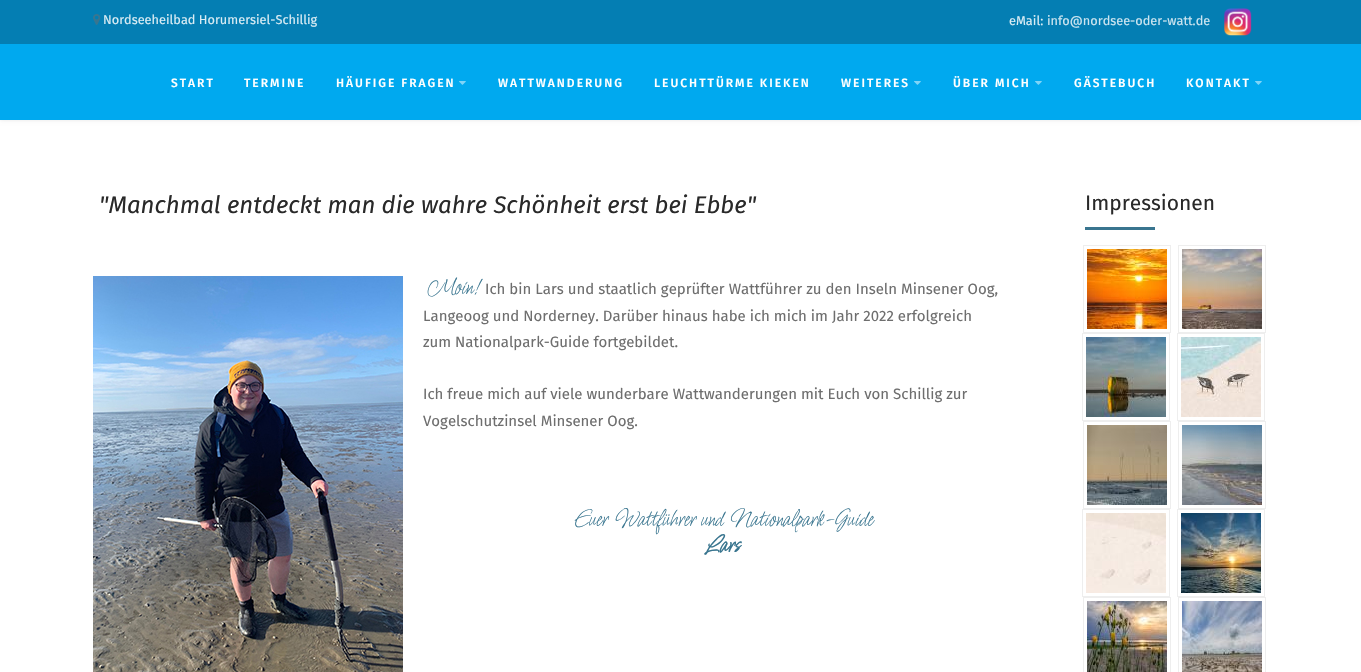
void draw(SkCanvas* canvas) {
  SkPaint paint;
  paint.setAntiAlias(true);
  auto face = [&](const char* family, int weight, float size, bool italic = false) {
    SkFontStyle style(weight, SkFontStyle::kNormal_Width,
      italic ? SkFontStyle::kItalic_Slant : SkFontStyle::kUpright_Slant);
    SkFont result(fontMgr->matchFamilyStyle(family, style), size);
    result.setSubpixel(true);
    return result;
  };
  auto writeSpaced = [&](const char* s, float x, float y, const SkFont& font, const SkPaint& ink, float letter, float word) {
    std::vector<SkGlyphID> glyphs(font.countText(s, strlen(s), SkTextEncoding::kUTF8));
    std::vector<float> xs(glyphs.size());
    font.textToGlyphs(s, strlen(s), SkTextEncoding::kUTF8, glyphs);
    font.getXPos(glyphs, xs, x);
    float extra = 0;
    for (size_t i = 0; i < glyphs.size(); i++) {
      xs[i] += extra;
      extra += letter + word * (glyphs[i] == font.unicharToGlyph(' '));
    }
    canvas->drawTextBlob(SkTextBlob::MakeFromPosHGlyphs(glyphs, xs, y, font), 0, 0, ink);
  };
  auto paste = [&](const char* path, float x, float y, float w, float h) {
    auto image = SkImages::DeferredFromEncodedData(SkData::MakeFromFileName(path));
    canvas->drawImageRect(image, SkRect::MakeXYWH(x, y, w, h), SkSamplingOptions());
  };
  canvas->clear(0xffffffff);
  paint.setColor(0x1a000000);
  paint.setMaskFilter(SkMaskFilter::MakeBlur(kNormal_SkBlurStyle, 2));
  canvas->drawRect(SkRect::MakeXYWH(0, 44, 1361, 76), paint);
  paint.setMaskFilter(nullptr);
  paint.setColor(0xff047eb3);
  canvas->drawRect(SkRect::MakeXYWH(0, 0, 1361, 44), paint);
  paste("img/1.png", 93, 14, 8, 11);
  paste("img/2.png", 1224, 8, 28, 28);
  paint.setColor(0xff00a9ef);
  canvas->drawRect(SkRect::MakeXYWH(0, 44, 1361, 76), paint);
  paste("img/3.png", 459, 81, 7, 4);
  paste("img/3.png", 914, 81, 7, 4);
  paste("img/3.png", 1035, 81, 7, 4);
  paste("img/3.png", 1255, 81, 7, 4);
  paste("img/4.png", 93, 276, 310, 396);
  paint.setColor(0xff39758f);
  canvas->drawRect(SkRect::MakeXYWH(1085, 227, 70, 3), paint);
  paint.setStroke(true);
  paint.setStrokeWidth(1);
  paint.setColor(0xffeeeeee);
  canvas->drawRect(SkRect::MakeXYWH(1083.5f, 245.5f, 87, 87), paint);
  canvas->drawRect(SkRect::MakeXYWH(1178.5f, 245.5f, 87, 87), paint);
  paste("img/5.png", 1087, 249, 80, 80);
  paste("img/6.png", 1182, 249, 80, 80);
  canvas->drawRect(SkRect::MakeXYWH(1082.5f, 333.5f, 87, 87), paint);
  canvas->drawRect(SkRect::MakeXYWH(1177.5f, 333.5f, 87, 87), paint);
  paste("img/7.png", 1086, 337, 80, 80);
  paste("img/8.png", 1181, 337, 80, 80);
  canvas->drawRect(SkRect::MakeXYWH(1083.5f, 421.5f, 87, 87), paint);
  canvas->drawRect(SkRect::MakeXYWH(1178.5f, 421.5f, 87, 87), paint);
  paste("img/9.png", 1087, 425, 80, 80);
  paste("img/10.png", 1182, 425, 80, 80);
  canvas->drawRect(SkRect::MakeXYWH(1082.5f, 509.5f, 87, 87), paint);
  canvas->drawRect(SkRect::MakeXYWH(1177.5f, 509.5f, 87, 87), paint);
  paste("img/11.png", 1086, 513, 80, 80);
  paste("img/12.png", 1181, 513, 80, 80);
  canvas->drawRect(SkRect::MakeXYWH(1083.5f, 597.5f, 87, 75), paint);
  canvas->drawRect(SkRect::MakeXYWH(1178.5f, 597.5f, 87, 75), paint);
  paste("img/13.png", 1087, 601, 80, 71);
  paste("img/14.png", 1182, 601, 80, 71);
  auto f0 = face("Fira Sans", 400, 12.75f);
  paint.setStroke(false);
  paint.setColor(0xffd9ecf4);
  canvas->drawString("Nordseeheilbad Horumersiel-Schillig", 103, 24, f0, paint);
  canvas->drawString("eMail:", 1009, 25, f0, paint);
  paint.setColor(0xffcde5f0);
  canvas->drawString("info@nordsee-oder-watt.de", 1047, 25, f0, paint);
  auto f1 = face("Fira Sans", 500, 12);
  paint.setColor(0xffffffff);
  {
    const struct { const char* s; float x, y; } items[] = {
      {"START", 171, 87},
      {"TERMINE", 244, 87},
      {"HÄUFIGE FRAGEN", 336, 87},
      {"WATTWANDERUNG", 498, 87},
      {"LEUCHTTÜRME KIEKEN", 654, 87},
      {"WEITERES", 841, 87},
      {"ÜBER MICH", 953, 87},
      {"GÄSTEBUCH", 1074, 87},
      {"KONTAKT", 1186, 87},
    };
    for (auto [s, x, y] : items) {
      writeSpaced(s, x, y, f1, paint, 2, 0);
    }
  }
  auto f2 = face("Fira Sans", 400, 24, true);
  paint.setColor(0xff292929);
  canvas->drawString("\"Manchmal entdeckt man die wahre Schönheit erst bei Ebbe\"", 99, 213, f2, paint);
  auto f3 = face("Licorice", 400, 24, true);
  paint.setColor(0xff39758f);
  canvas->drawString("Moin!", 426, 294, f3, paint);
  auto f4 = face("Fira Sans", 400, 15);
  paint.setColor(0xff6e6e6e);
  {
    const struct { const char* s; float x, y; } items[] = {
      {"Ich bin Lars und staatlich geprüfter Wattführer zu den Inseln Minsener Oog,", 485, 294},
      {"Langeoog und Norderney. Darüber hinaus habe ich mich im Jahr 2022 erfolgreich", 423, 321},
      {"zum Nationalpark-Guide fortgebildet.", 423, 347},
      {"Ich freue mich auf viele wunderbare Wattwanderungen mit Euch von Schillig zur", 423, 399},
      {"Vogelschutzinsel Minsener Oog.", 423, 426},
    };
    for (auto [s, x, y] : items) {
      canvas->drawString(s, x, y, f4, paint);
    }
  }
  paint.setColor(0xff39758f);
  canvas->drawString("Euer Wattführer und Nationalpark-Guide", 572, 526, f3, paint);
  auto f5 = face("Licorice", 700, 24, true);
  canvas->drawString("Lars", 705, 552, f5, paint);
  auto f6 = face("Fira Sans", 400, 21);
  paint.setColor(0xff292929);
  canvas->drawString("Impressionen", 1085, 210, f6, paint);
}
